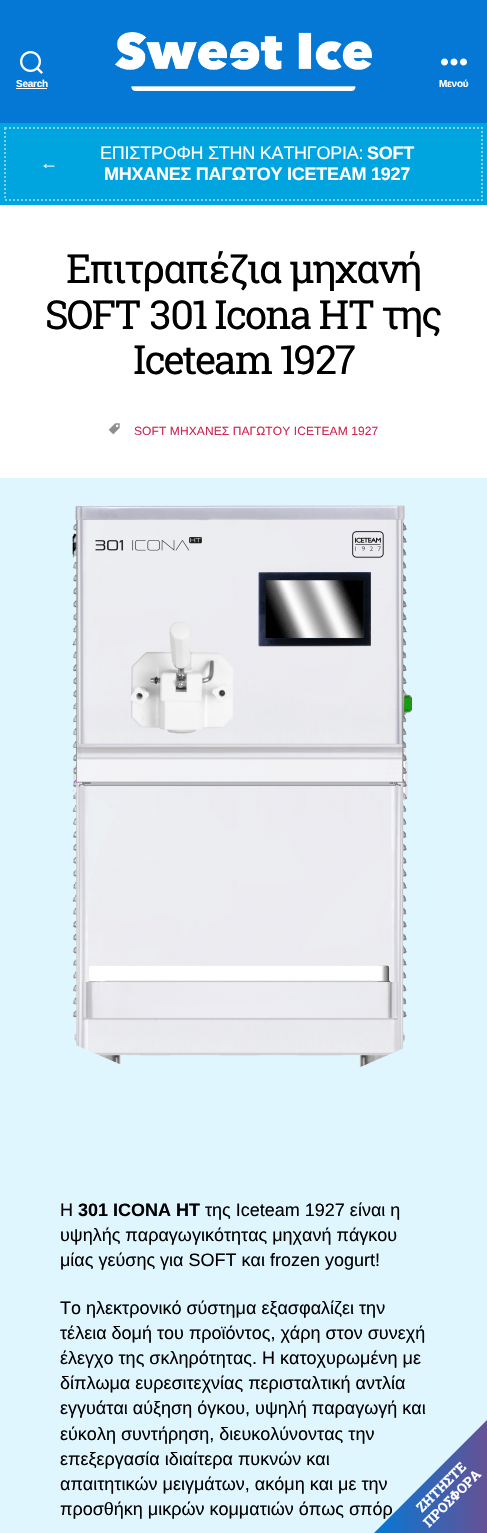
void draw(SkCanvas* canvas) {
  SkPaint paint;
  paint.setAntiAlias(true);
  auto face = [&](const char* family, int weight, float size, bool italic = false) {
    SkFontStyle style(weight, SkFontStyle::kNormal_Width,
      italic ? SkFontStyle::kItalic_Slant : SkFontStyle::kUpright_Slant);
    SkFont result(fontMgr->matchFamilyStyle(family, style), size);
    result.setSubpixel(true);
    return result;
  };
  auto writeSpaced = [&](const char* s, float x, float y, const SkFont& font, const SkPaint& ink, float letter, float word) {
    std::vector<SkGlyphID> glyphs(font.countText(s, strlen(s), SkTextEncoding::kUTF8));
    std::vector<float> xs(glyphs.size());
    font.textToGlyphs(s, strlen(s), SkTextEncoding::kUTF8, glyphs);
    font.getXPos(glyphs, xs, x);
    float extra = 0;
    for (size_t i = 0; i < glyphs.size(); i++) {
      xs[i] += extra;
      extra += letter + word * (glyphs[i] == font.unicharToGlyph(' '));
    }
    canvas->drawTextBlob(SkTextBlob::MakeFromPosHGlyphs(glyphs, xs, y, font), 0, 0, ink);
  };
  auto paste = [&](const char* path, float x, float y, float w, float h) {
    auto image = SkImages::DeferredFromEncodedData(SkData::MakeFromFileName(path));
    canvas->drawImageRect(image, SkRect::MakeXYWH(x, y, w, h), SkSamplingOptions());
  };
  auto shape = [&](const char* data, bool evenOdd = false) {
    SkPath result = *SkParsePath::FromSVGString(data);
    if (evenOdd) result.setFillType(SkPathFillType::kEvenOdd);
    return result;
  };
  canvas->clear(0xffe0f6ff);
  paint.setColor(0xff0478d4);
  canvas->drawRect(SkRect::MakeXYWH(0, 0, 487, 123), paint);
  paste("img/1.png", 20, 51, 23, 23);
  paint.setColor(0xffffffff);
  canvas->drawRect(SkRect::MakeXYWH(16, 88, 31, 1), paint);
  paste("img/2.png", 115, 32, 257, 59);
  paste("img/3.png", 441, 58, 26, 8);
  paint.setColor(0xff00a5e0);
  canvas->drawRect(SkRect::MakeXYWH(0, 123, 487, 82), paint);
  paint.setColor(0xffffffff);
  canvas->drawRect(SkRect::MakeXYWH(0, 205, 487, 273), paint);
  paste("img/4.png", 108, 423, 12, 12);
  paste("img/5.png", 72, 505, 341, 563);
  auto f0 = face("Liberation Sans", 700, 10);
  writeSpaced("Search", 16, 87, f0, paint, -0.25f, 0);
  writeSpaced("Μενού", 439, 87, f0, paint, -0.25f, 0);
  auto f1 = face("Liberation Sans", 400, 18);
  writeSpaced("←", 40, 169, f1, paint, -0.25f, 0);
  writeSpaced("ΕΠΙΣΤΡΟΦΗ ΣΤΗΝ ΚΑΤΗΓΟΡΙΑ:", 100, 159, f1, paint, -0.25f, 0);
  auto f2 = face("Liberation Sans", 700, 18);
  writeSpaced("SOFT", 367, 159, f2, paint, -0.25f, 0);
  writeSpaced("ΜΗΧΑΝΕΣ ΠΑΓΩΤΟΥ ICETEAM 1927", 104, 180, f2, paint, -0.25f, 0);
  paint.setStroke(true);
  paint.setStrokeWidth(2);
  paint.setColor(0xff80d2f0);
  paint.setPathEffect(SkDashPathEffect::Make({{2, 2}}, 0));
  canvas->drawPath(shape("M5 128H482V200H5Z"), paint);
  paint.setPathEffect(nullptr);
  auto f3 = face("Roboto Slab", 400, 40);
  paint.setStroke(false);
  paint.setColor(0xff000000);
  writeSpaced("Επιτραπέζια μηχανή", 66, 283, f3, paint, -1.7f, 0);
  auto f4 = face("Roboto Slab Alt", 400, 40);
  writeSpaced("SOFT 301 Icona HT της", 45, 329, f4, paint, -1.7f, 0);
  writeSpaced("Iceteam 1927", 133, 374, f4, paint, -1.7f, 0);
  auto f5 = face("Liberation Sans", 400, 12);
  paint.setColor(0xffcd2653);
  writeSpaced("SOFT ΜΗΧΑΝΕΣ ΠΑΓΩΤΟΥ ICETEAM 1927", 134, 435, f5, paint, 0.1f, 0);
  paint.setColor(0xff000000);
  canvas->drawString("Η", 60, 1216, f1, paint);
  canvas->drawString("301 ICONA HT", 78, 1216, f2, paint);
  {
    const struct { const char* s; float x, y; } items[] = {
      {"της Iceteam 1927 είναι η", 205, 1216},
      {"υψηλής παραγωγικότητας μηχανή πάγκου", 60, 1241},
      {"μίας γεύσης για SOFT και frozen yogurt!", 60, 1266},
      {"Το ηλεκτρονικό σύστημα εξασφαλίζει την", 60, 1314},
      {"τέλεια δομή του προϊόντος, χάρη στον συνεχή", 60, 1339},
      {"έλεγχο της σκληρότητας. Η κατοχυρωμένη με", 60, 1364},
      {"δίπλωμα ευρεσιτεχνίας περισταλτική αντλία", 60, 1389},
      {"εγγυάται αύξηση όγκου, υψηλή παραγωγή και", 60, 1414},
      {"εύκολη συντήρηση, διευκολύνοντας την", 60, 1440},
      {"επεξεργασία ιδιαίτερα πυκνών και", 60, 1465},
      {"απαιτητικών μειγμάτων, ακόμη και με την", 60, 1490},
      {"προσθήκη μικρών κομματιών όπως σπόρ", 60, 1515},
    };
    for (auto [s, x, y] : items) {
      canvas->drawString(s, x, y, f1, paint);
    }
  }
  {
    const SkColor colors[] = {0xff0478d4, 0xffc92a55};
    const float stops[] = {0, 1};
    const SkPoint ends[] = {{374, 1533}, {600, 1533}};
    paint.setShader(SkGradientShader::MakeLinear(ends, colors, stops, 2, SkTileMode::kClamp));
    paint.setAlpha(255);
  }
  canvas->drawPath(shape("M374 1533L487 1420L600 1533L487 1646Z"), paint);
  auto f6 = face("Roboto Slab", 700, 13.5f);
  paint.setShader(nullptr);
  paint.setColor(0xffffffff);
  canvas->save();
  canvas->rotate(-45, 422, 1513);
  canvas->drawString("ZΗΤΗΣΤΕ", 422, 1513, f6, paint);
  canvas->restore();
  canvas->save();
  canvas->rotate(-45, 429, 1528);
  canvas->drawString("ΠΡΟΣΦΟΡΑ", 429, 1528, f6, paint);
  canvas->restore();
}
